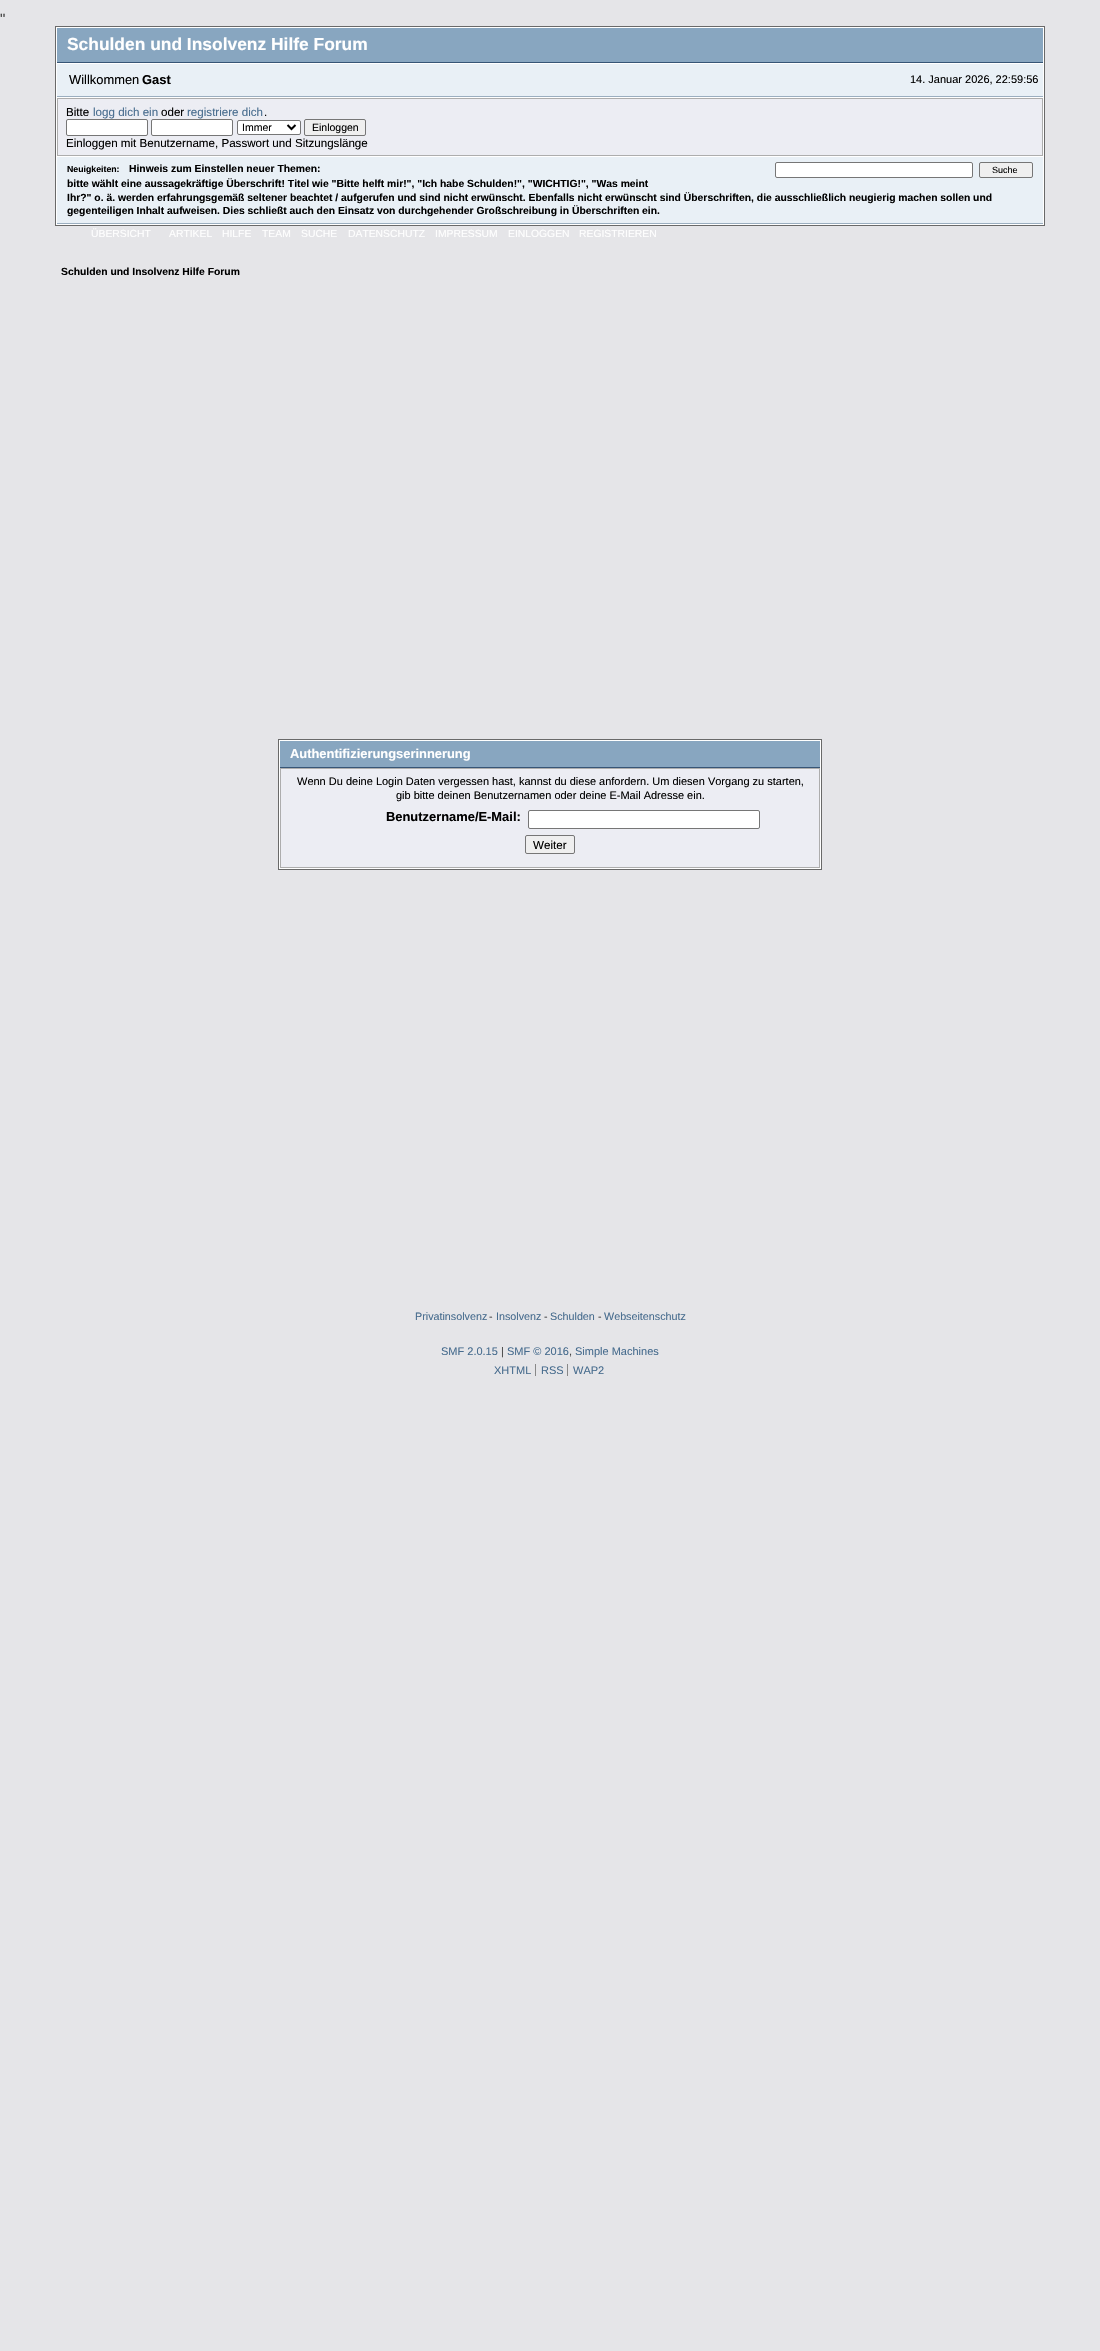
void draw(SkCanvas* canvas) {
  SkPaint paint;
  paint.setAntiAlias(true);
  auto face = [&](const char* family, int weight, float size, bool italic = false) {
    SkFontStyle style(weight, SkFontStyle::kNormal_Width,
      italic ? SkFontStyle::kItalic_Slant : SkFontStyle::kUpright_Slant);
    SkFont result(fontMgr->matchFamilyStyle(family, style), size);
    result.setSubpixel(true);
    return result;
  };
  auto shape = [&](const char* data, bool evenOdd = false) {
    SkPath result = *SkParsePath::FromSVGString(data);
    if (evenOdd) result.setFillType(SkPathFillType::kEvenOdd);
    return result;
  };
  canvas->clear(0xffe5e5e8);
  paint.setColor(0xffffffff);
  canvas->drawRect(SkRect::MakeXYWH(55.5f, 26.5f, 989, 199), paint);
  paint.setStroke(true);
  paint.setStrokeWidth(1);
  paint.setColor(0xff696969);
  canvas->drawRect(SkRect::MakeXYWH(55.5f, 26.5f, 989, 199), paint);
  paint.setStroke(false);
  {
    const struct { float x, y, w, h; SkColor color; } items[] = {
      {57, 28, 986, 34, 0xff88a6c0},
      {57, 62, 986, 1, 0xff375576},
      {57, 64, 986, 32, 0xffe9f0f6},
      {57, 96, 986, 1, 0xff9baebf},
      {57, 98, 986, 58, 0xffadadad},
      {58, 99, 984, 56, 0xffecedf3},
    };
    for (auto [x, y, w, h, color] : items) {
      paint.setColor(color);
      canvas->drawRect(SkRect::MakeXYWH(x, y, w, h), paint);
    }
  }
  paint.setColor(0xffffffff);
  canvas->drawRoundRect(SkRect::MakeXYWH(66.5f, 119.5f, 81, 16), 1.5f, 1.5f, paint);
  paint.setStroke(true);
  paint.setColor(0xff767676);
  canvas->drawRoundRect(SkRect::MakeXYWH(66.5f, 119.5f, 81, 16), 1.5f, 1.5f, paint);
  paint.setStroke(false);
  paint.setColor(0xffffffff);
  canvas->drawRoundRect(SkRect::MakeXYWH(151.5f, 119.5f, 81, 16), 1.5f, 1.5f, paint);
  paint.setStroke(true);
  paint.setColor(0xff767676);
  canvas->drawRoundRect(SkRect::MakeXYWH(151.5f, 119.5f, 81, 16), 1.5f, 1.5f, paint);
  paint.setStroke(false);
  paint.setColor(0xffffffff);
  canvas->drawRoundRect(SkRect::MakeXYWH(237.5f, 120.5f, 63, 14), 1.5f, 1.5f, paint);
  paint.setStroke(true);
  paint.setColor(0xff767676);
  canvas->drawRoundRect(SkRect::MakeXYWH(237.5f, 120.5f, 63, 14), 1.5f, 1.5f, paint);
  paint.setStrokeWidth(2);
  paint.setColor(0xff000000);
  canvas->drawPath(shape("M287.5 125L291.5 129L295.5 125"), paint);
  paint.setStroke(false);
  paint.setColor(0xffefefef);
  canvas->drawRoundRect(SkRect::MakeXYWH(304.5f, 119.5f, 61, 16), 1.5f, 1.5f, paint);
  paint.setStroke(true);
  paint.setStrokeWidth(1);
  paint.setColor(0xff767676);
  canvas->drawRoundRect(SkRect::MakeXYWH(304.5f, 119.5f, 61, 16), 1.5f, 1.5f, paint);
  paint.setStroke(false);
  paint.setColor(0xffe9f0f6);
  canvas->drawRect(SkRect::MakeXYWH(57, 157, 986, 66), paint);
  paint.setColor(0xff9baebf);
  canvas->drawRect(SkRect::MakeXYWH(57, 223, 986, 1), paint);
  paint.setColor(0xffffffff);
  canvas->drawRoundRect(SkRect::MakeXYWH(775.5f, 162.5f, 197, 15), 1.5f, 1.5f, paint);
  paint.setStroke(true);
  paint.setColor(0xff767676);
  canvas->drawRoundRect(SkRect::MakeXYWH(775.5f, 162.5f, 197, 15), 1.5f, 1.5f, paint);
  paint.setStroke(false);
  paint.setColor(0xffefefef);
  canvas->drawRoundRect(SkRect::MakeXYWH(979.5f, 162.5f, 53, 15), 1.5f, 1.5f, paint);
  paint.setStroke(true);
  paint.setColor(0xff767676);
  canvas->drawRoundRect(SkRect::MakeXYWH(979.5f, 162.5f, 53, 15), 1.5f, 1.5f, paint);
  paint.setStroke(false);
  paint.setColor(0xffffffff);
  canvas->drawRect(SkRect::MakeXYWH(278.5f, 739.5f, 543, 130), paint);
  paint.setStroke(true);
  paint.setColor(0xff696969);
  canvas->drawRect(SkRect::MakeXYWH(278.5f, 739.5f, 543, 130), paint);
  paint.setStroke(false);
  paint.setColor(0xff88a6c0);
  canvas->drawRect(SkRect::MakeXYWH(280, 741, 540, 26), paint);
  paint.setColor(0xff375576);
  canvas->drawRect(SkRect::MakeXYWH(280, 767, 540, 1), paint);
  paint.setColor(0xffecedf3);
  canvas->drawRect(SkRect::MakeXYWH(280.5f, 768.5f, 539, 99), paint);
  paint.setStroke(true);
  paint.setColor(0xffadadad);
  canvas->drawRect(SkRect::MakeXYWH(280.5f, 768.5f, 539, 99), paint);
  paint.setStroke(false);
  paint.setColor(0xffffffff);
  canvas->drawRoundRect(SkRect::MakeXYWH(528.5f, 810.5f, 231, 18), 1.5f, 1.5f, paint);
  paint.setStroke(true);
  paint.setColor(0xff767676);
  canvas->drawRoundRect(SkRect::MakeXYWH(528.5f, 810.5f, 231, 18), 1.5f, 1.5f, paint);
  paint.setStroke(false);
  paint.setColor(0xffefefef);
  canvas->drawRoundRect(SkRect::MakeXYWH(525.5f, 835.5f, 49, 18), 1.5f, 1.5f, paint);
  paint.setStroke(true);
  paint.setColor(0xff767676);
  canvas->drawRoundRect(SkRect::MakeXYWH(525.5f, 835.5f, 49, 18), 1.5f, 1.5f, paint);
  paint.setStroke(false);
  paint.setColor(0xff888888);
  canvas->drawRect(SkRect::MakeXYWH(535, 1364, 1, 12), paint);
  canvas->drawRect(SkRect::MakeXYWH(567, 1364, 1, 12), paint);
  auto f0 = face("Liberation Sans", 400, 15);
  paint.setColor(0xff444444);
  canvas->drawString("\"", 0, 24, f0, paint);
  auto f1 = face("Liberation Sans", 700, 17.4f);
  paint.setColor(0xffffffff);
  canvas->drawString("Schulden und Insolvenz Hilfe Forum", 67, 50, f1, paint);
  auto f2 = face("Liberation Sans", 400, 12.9f);
  paint.setColor(0xff000000);
  canvas->drawString("Willkommen", 69, 84, f2, paint);
  auto f3 = face("Liberation Sans", 700, 12.9f);
  canvas->drawString("Gast", 142, 84, f3, paint);
  auto f4 = face("Liberation Sans", 400, 11);
  canvas->drawString("14. Januar 2026, 22:59:56", 910, 83, f4, paint);
  auto f5 = face("Liberation Sans", 400, 11.6f);
  canvas->drawString("Bitte", 66, 116, f5, paint);
  paint.setColor(0xff476c8e);
  canvas->drawString("logg dich ein", 93, 116, f5, paint);
  paint.setColor(0xff000000);
  canvas->drawString("oder", 161, 116, f5, paint);
  paint.setColor(0xff476c8e);
  canvas->drawString("registriere dich", 187, 116, f5, paint);
  paint.setColor(0xff000000);
  canvas->drawString(".", 264, 116, f5, paint);
  auto f6 = face("Liberation Sans", 400, 10.5f);
  canvas->drawString("Immer", 242, 131, f6, paint);
  canvas->drawString("Einloggen", 312, 131, f6, paint);
  canvas->drawString("Einloggen mit Benutzername, Passwort und Sitzungslänge", 66, 147, f5, paint);
  auto f7 = face("Liberation Sans", 700, 8.75f);
  canvas->drawString("Neuigkeiten:", 67, 172, f7, paint);
  auto f8 = face("Liberation Sans", 700, 10.35f);
  {
    const struct { const char* s; float x, y; } items[] = {
      {"Hinweis zum Einstellen neuer Themen:", 129, 172},
      {"bitte wählt eine aussagekräftige Überschrift! Titel wie \"Bitte helft mir!\", \"Ich habe Schulden!\", \"WICHTIG!\", \"Was meint", 67, 187},
      {"Ihr?\" o. ä. werden erfahrungsgemäß seltener beachtet / aufgerufen und sind nicht erwünscht. Ebenfalls nicht erwünscht sind Überschriften, die ausschließlich neugierig machen sollen und", 67, 201},
      {"gegenteiligen Inhalt aufweisen. Dies schließt auch den Einsatz von durchgehender Großschreibung in Überschriften ein.", 67, 214},
    };
    for (auto [s, x, y] : items) {
      canvas->drawString(s, x, y, f8, paint);
    }
  }
  auto f9 = face("Liberation Sans", 400, 9);
  canvas->drawString("Suche", 992, 173, f9, paint);
  auto f10 = face("Liberation Sans", 400, 10.35f);
  paint.setColor(0xffffffff);
  {
    const struct { const char* s; float x, y; } items[] = {
      {"ÜBERSICHT", 91, 237},
      {"ARTIKEL", 169, 237},
      {"HILFE", 222, 237},
      {"TEAM", 262, 237},
      {"SUCHE", 301, 237},
      {"DATENSCHUTZ", 348, 237},
      {"IMPRESSUM", 435, 237},
      {"EINLOGGEN", 508, 237},
      {"REGISTRIEREN", 579, 237},
    };
    for (auto [s, x, y] : items) {
      canvas->drawString(s, x, y, f10, paint);
    }
  }
  paint.setColor(0xff000000);
  canvas->drawString("Schulden und Insolvenz Hilfe Forum", 61, 275, f8, paint);
  paint.setColor(0xffffffff);
  canvas->drawString("Authentifizierungserinnerung", 290, 758, f3, paint);
  paint.setColor(0xff000000);
  canvas->drawString("Wenn Du deine Login Daten vergessen hast, kannst du diese anfordern. Um diesen Vorgang zu starten,", 297, 785, f4, paint);
  canvas->drawString("gib bitte deinen Benutzernamen oder deine E-Mail Adresse ein.", 396, 799, f4, paint);
  canvas->drawString("Benutzername/E-Mail:", 386, 821, f3, paint);
  canvas->drawString("Weiter", 533, 849, f5, paint);
  auto f11 = face("Liberation Sans", 400, 10.75f);
  paint.setColor(0xff476c8e);
  canvas->drawString("Privatinsolvenz", 415, 1320, f11, paint);
  paint.setColor(0xff444444);
  canvas->drawString("-", 489, 1320, f11, paint);
  paint.setColor(0xff476c8e);
  canvas->drawString("Insolvenz", 496, 1320, f11, paint);
  paint.setColor(0xff444444);
  canvas->drawString("-", 544, 1320, f11, paint);
  paint.setColor(0xff476c8e);
  canvas->drawString("Schulden", 550, 1320, f11, paint);
  paint.setColor(0xff444444);
  canvas->drawString("-", 598, 1320, f11, paint);
  paint.setColor(0xff476c8e);
  canvas->drawString("Webseitenschutz", 604, 1320, f11, paint);
  canvas->drawString("SMF 2.0.15", 441, 1355, f4, paint);
  paint.setColor(0xff444444);
  canvas->drawString("|", 501, 1355, f4, paint);
  paint.setColor(0xff476c8e);
  canvas->drawString("SMF © 2016", 507, 1355, f4, paint);
  paint.setColor(0xff444444);
  canvas->drawString(",", 569, 1355, f4, paint);
  paint.setColor(0xff476c8e);
  {
    const struct { const char* s; float x, y; } items[] = {
      {"Simple Machines", 575, 1355},
      {"XHTML", 494, 1374},
      {"RSS", 541, 1374},
      {"WAP2", 573, 1374},
    };
    for (auto [s, x, y] : items) {
      canvas->drawString(s, x, y, f4, paint);
    }
  }
}
